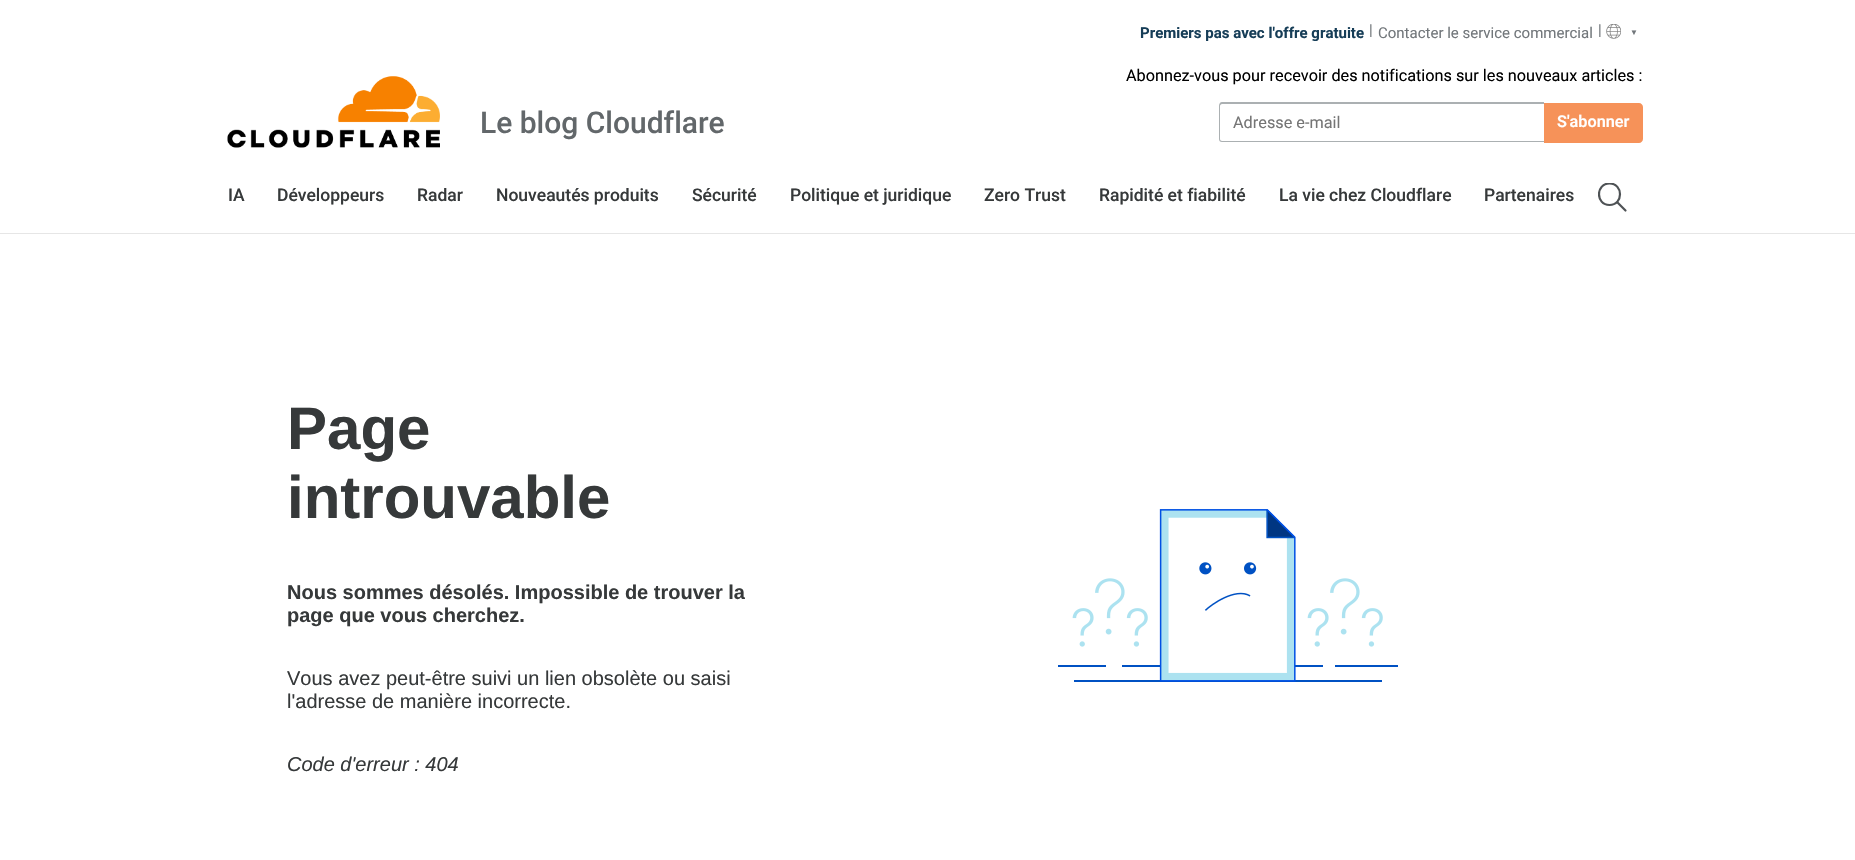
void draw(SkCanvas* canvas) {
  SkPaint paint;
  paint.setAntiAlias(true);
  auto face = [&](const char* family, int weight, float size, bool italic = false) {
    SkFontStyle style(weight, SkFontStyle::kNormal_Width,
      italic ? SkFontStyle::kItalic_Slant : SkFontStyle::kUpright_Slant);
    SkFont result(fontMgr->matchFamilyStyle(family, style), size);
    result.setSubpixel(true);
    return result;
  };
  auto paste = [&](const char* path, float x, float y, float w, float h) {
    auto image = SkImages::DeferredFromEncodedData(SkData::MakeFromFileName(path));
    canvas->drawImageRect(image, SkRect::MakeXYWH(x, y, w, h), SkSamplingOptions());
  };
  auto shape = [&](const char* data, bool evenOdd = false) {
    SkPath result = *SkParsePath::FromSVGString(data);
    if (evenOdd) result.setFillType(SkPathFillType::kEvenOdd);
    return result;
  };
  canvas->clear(0xffffffff);
  paste("img/1.png", 1606, 24, 15, 15);
  paste("img/2.png", 227, 76, 213, 72);
  paint.setColor(0xffabb0b2);
  canvas->drawPath(shape("M1222 102H1544V142H1222C1220 142 1219 141 1219 139V106C1219 104 1220 102 1222 102ZM1222 104H1544V141H1222C1221 141 1220 140 1220 139V106C1220 105 1221 104 1222 104Z", true), paint);
  paint.setColor(0xfff69259);
  canvas->drawPath(shape("M1544 103H1639C1641 103 1643 105 1643 107V139C1643 141 1641 143 1639 143H1544Z"), paint);
  paint.setColor(0xffe6e6e6);
  canvas->drawRect(SkRect::MakeXYWH(0, 233, 1855, 1), paint);
  canvas->save();
  canvas->clipRect(SkRect::MakeXYWH(1598, 183, 30, 30));
  paint.setStroke(true);
  paint.setStrokeWidth(2.2f);
  paint.setStrokeCap(SkPaint::kRound_Cap);
  paint.setStrokeJoin(SkPaint::kRound_Join);
  paint.setColor(0xff4e5255);
  canvas->drawPath(shape("M1609.5 205C1623.5 205 1623.5 183.5 1609.5 183.5C1595.5 183.5 1595.5 205 1609.5 205Z"), paint);
  canvas->restore();
  canvas->drawPath(shape("M1617.5 202.5L1625.5 210.5"), paint);
  paste("img/3.png", 1058, 509, 340, 173);
  auto f0 = face("Roboto", 700, 15);
  paint.setStroke(false);
  paint.setColor(0xff163d57);
  canvas->drawString("Premiers pas avec l'offre gratuite", 1140, 38, f0, paint);
  auto f1 = face("Roboto", 400, 15);
  paint.setColor(0xff72777b);
  {
    const struct { const char* s; float x, y; } items[] = {
      {"|", 1369, 35},
      {"Contacter le service commercial", 1378, 38},
      {"|", 1598, 35},
    };
    for (auto [s, x, y] : items) {
      canvas->drawString(s, x, y, f1, paint);
    }
  }
  auto f2 = face("Liberation Sans", 400, 8);
  canvas->drawString("▼", 1630, 35, f2, paint);
  auto f3 = face("Roboto", 500, 30);
  paint.setColor(0xff62676a);
  canvas->drawString("Le blog Cloudflare", 480, 133, f3, paint);
  auto f4 = face("Roboto", 400, 16.25f);
  paint.setColor(0xff000000);
  canvas->drawString("Abonnez-vous pour recevoir des notifications sur les nouveaux articles :", 1126, 81, f4, paint);
  paint.setColor(0xff757575);
  canvas->drawString("Adresse e-mail", 1233, 128, f4, paint);
  auto f5 = face("Roboto", 600, 16.25f);
  paint.setColor(0xffffffff);
  canvas->drawString("S'abonner", 1557, 127, f5, paint);
  auto f6 = face("Roboto", 500, 17.5f);
  paint.setColor(0xff36393a);
  {
    const struct { const char* s; float x, y; } items[] = {
      {"IA", 228, 201},
      {"Développeurs", 277, 201},
      {"Radar", 417, 201},
      {"Nouveautés produits", 496, 201},
      {"Sécurité", 692, 201},
      {"Politique et juridique", 790, 201},
      {"Zero Trust", 984, 201},
      {"Rapidité et fiabilité", 1099, 201},
      {"La vie chez Cloudflare", 1279, 201},
      {"Partenaires", 1484, 201},
    };
    for (auto [s, x, y] : items) {
      canvas->drawString(s, x, y, f6, paint);
    }
  }
  auto f7 = face("Liberation Sans", 700, 60);
  canvas->drawString("Page", 287, 449, f7, paint);
  canvas->drawString("introuvable", 287, 518, f7, paint);
  auto f8 = face("Liberation Sans", 700, 20);
  canvas->drawString("Nous sommes désolés. Impossible de trouver la", 287, 599, f8, paint);
  canvas->drawString("page que vous cherchez.", 287, 622, f8, paint);
  auto f9 = face("Liberation Sans", 400, 20);
  canvas->drawString("Vous avez peut-être suivi un lien obsolète ou saisi", 287, 685, f9, paint);
  canvas->drawString("l'adresse de manière incorrecte.", 287, 708, f9, paint);
  auto f10 = face("Liberation Sans", 400, 20, true);
  canvas->drawString("Code d'erreur : 404", 287, 771, f10, paint);
}
